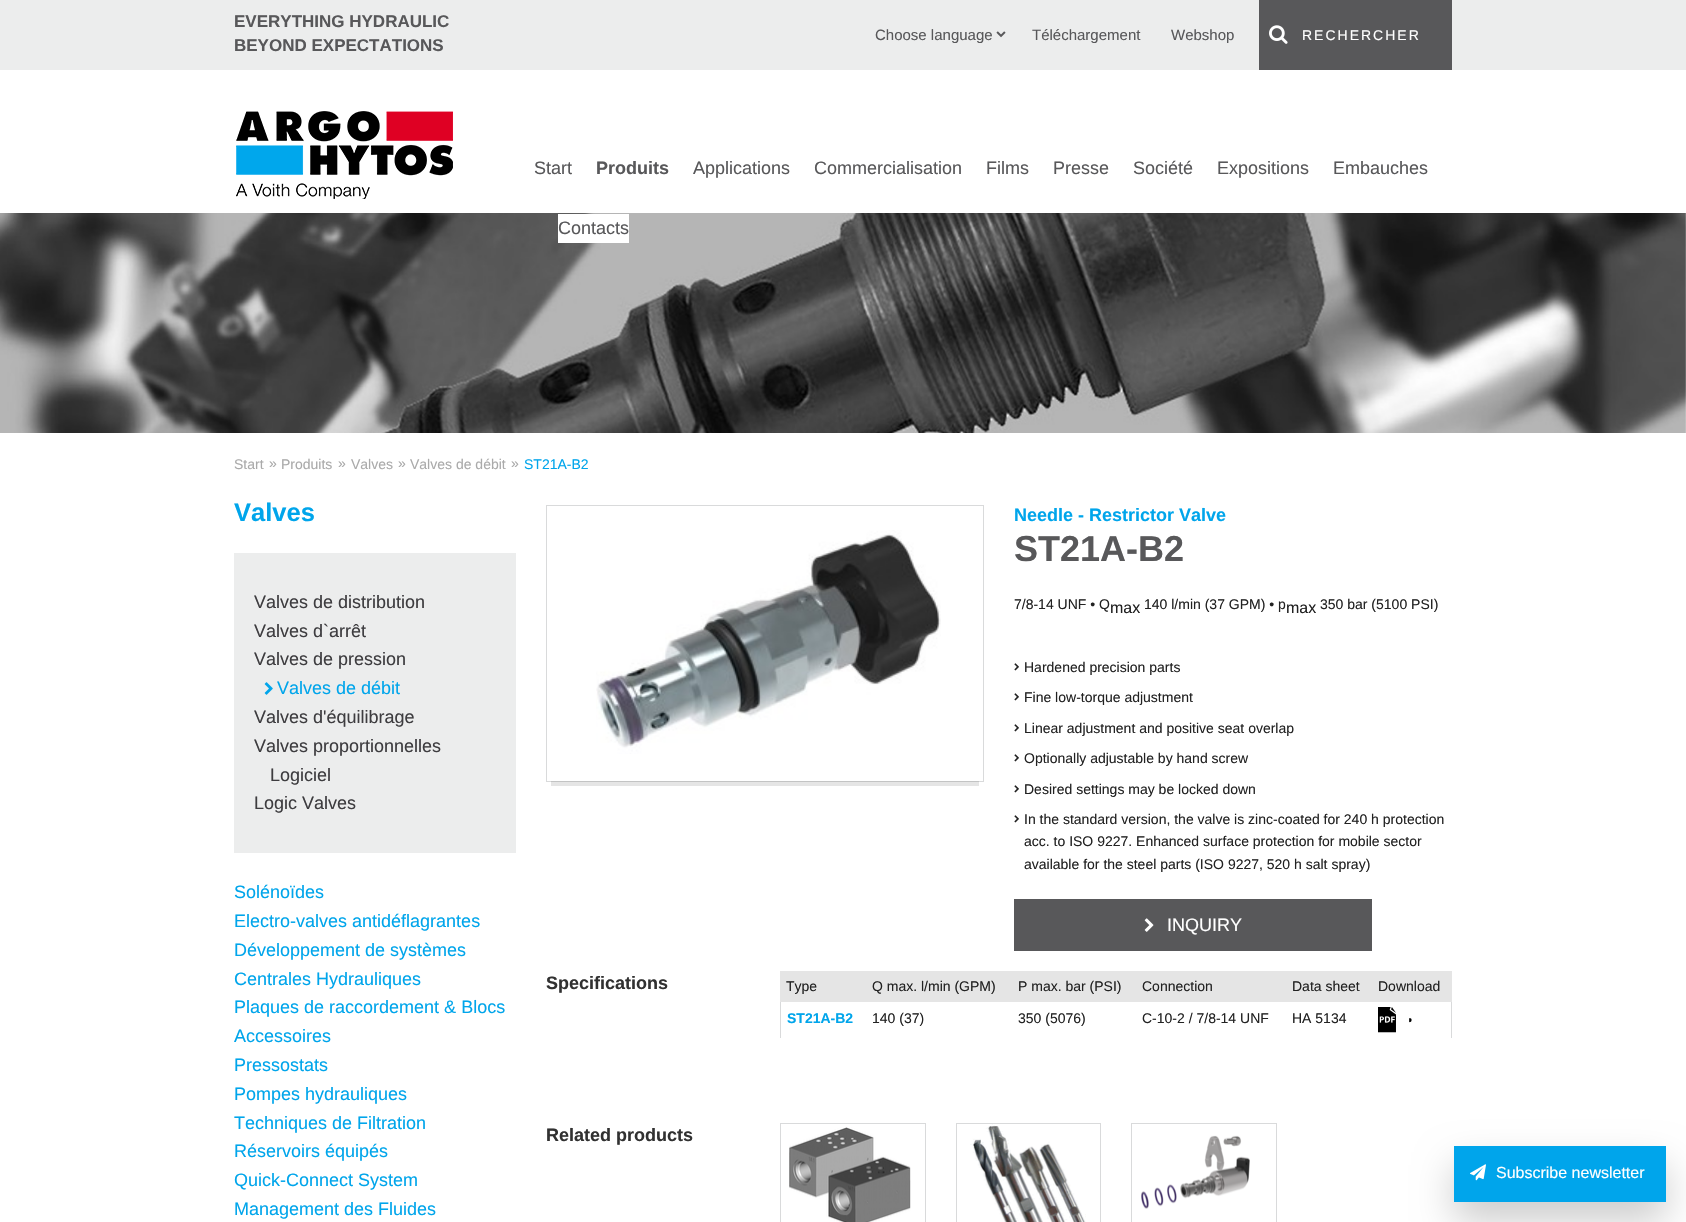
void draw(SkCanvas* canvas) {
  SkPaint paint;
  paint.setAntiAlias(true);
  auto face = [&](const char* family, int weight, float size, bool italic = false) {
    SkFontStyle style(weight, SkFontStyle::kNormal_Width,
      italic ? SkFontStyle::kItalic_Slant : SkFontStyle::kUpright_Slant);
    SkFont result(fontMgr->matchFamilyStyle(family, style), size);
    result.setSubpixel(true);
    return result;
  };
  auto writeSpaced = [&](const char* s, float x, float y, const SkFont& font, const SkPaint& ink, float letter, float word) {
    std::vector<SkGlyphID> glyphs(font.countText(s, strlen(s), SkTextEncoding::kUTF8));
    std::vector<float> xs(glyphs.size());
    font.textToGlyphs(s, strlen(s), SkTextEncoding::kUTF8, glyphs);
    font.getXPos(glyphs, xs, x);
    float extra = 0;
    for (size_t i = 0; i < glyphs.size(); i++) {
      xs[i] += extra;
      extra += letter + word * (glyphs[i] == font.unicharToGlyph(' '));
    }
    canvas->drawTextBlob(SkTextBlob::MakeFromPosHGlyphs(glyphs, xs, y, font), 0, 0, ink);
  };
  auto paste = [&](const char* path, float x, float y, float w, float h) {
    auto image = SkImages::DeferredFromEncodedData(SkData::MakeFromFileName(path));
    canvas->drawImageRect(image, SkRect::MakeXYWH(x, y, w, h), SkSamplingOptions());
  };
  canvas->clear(0xffffffff);
  paint.setColor(0xffeceded);
  canvas->drawRect(SkRect::MakeXYWH(0, 0, 1686, 70), paint);
  paste("img/1.png", 996, 31, 10, 7);
  paint.setColor(0xff58585a);
  canvas->drawRect(SkRect::MakeXYWH(1259, 0, 193, 70), paint);
  paste("img/2.png", 1269, 25, 19, 19);
  paste("img/3.png", 236, 111, 217, 88);
  paste("img/4.png", 0, 213, 1686, 220);
  paint.setColor(0xffffffff);
  canvas->drawRect(SkRect::MakeXYWH(558, 214, 71, 29), paint);
  paint.setColor(0xffeceded);
  canvas->drawRect(SkRect::MakeXYWH(234, 553, 282, 300), paint);
  paste("img/5.png", 264, 682, 9, 13);
  paint.setStroke(true);
  paint.setStrokeWidth(1);
  paint.setColor(0xffd9dadb);
  canvas->drawRect(SkRect::MakeXYWH(546.5f, 505.5f, 437, 276), paint);
  paste("img/6.png", 596, 530, 345, 224);
  paint.setStroke(false);
  paint.setColor(0x1a000000);
  canvas->drawRect(SkRect::MakeXYWH(551, 781, 428, 5), paint);
  paste("img/7.png", 1014, 663, 5, 8);
  paste("img/7.png", 1014, 693, 5, 8);
  paste("img/7.png", 1014, 724, 5, 8);
  paste("img/7.png", 1014, 754, 5, 8);
  paste("img/7.png", 1014, 785, 5, 8);
  paste("img/7.png", 1014, 815, 5, 8);
  paint.setColor(0xff58585a);
  canvas->drawRect(SkRect::MakeXYWH(1014, 899, 358, 52), paint);
  paste("img/8.png", 1144, 918, 10, 14);
  {
    const struct { float x, y, w, h; SkColor color; } items[] = {
      {780, 971, 672, 31, 0xffe5e5e5},
      {1451, 1002, 1, 36, 0xffd9dadb},
      {780, 1002, 1, 36, 0xffd9dadb},
    };
    for (auto [x, y, w, h, color] : items) {
      paint.setColor(color);
      canvas->drawRect(SkRect::MakeXYWH(x, y, w, h), paint);
    }
  }
  paste("img/9.png", 1378, 1007, 18, 26);
  paste("img/10.png", 1409, 1018, 3, 5);
  paint.setStroke(true);
  canvas->drawRect(SkRect::MakeXYWH(780.5f, 1123.5f, 145, 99), paint);
  paste("img/11.png", 789, 1127, 122, 95);
  canvas->drawRect(SkRect::MakeXYWH(956.5f, 1123.5f, 144, 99), paint);
  paste("img/12.png", 970, 1124, 116, 98);
  canvas->drawRect(SkRect::MakeXYWH(1131.5f, 1123.5f, 145, 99), paint);
  paste("img/13.png", 1141, 1135, 109, 74);
  paint.setStroke(false);
  paint.setColor(0x33000000);
  paint.setMaskFilter(SkMaskFilter::MakeBlur(kNormal_SkBlurStyle, 19));
  canvas->drawRect(SkRect::MakeXYWH(1454, 1165, 212, 56), paint);
  paint.setMaskFilter(nullptr);
  paint.setColor(0xff00a5eb);
  canvas->drawRect(SkRect::MakeXYWH(1454, 1146, 212, 56), paint);
  paste("img/14.png", 1470, 1164, 16, 17);
  auto f0 = face("Liberation Sans", 700, 17);
  paint.setColor(0xff58585a);
  canvas->drawString("EVERYTHING HYDRAULIC", 234, 27, f0, paint);
  canvas->drawString("BEYOND EXPECTATIONS", 234, 51, f0, paint);
  auto f1 = face("Liberation Sans", 400, 15);
  {
    const struct { const char* s; float x, y; } items[] = {
      {"Choose language", 875, 40},
      {"Téléchargement", 1032, 40},
      {"Webshop", 1171, 40},
    };
    for (auto [s, x, y] : items) {
      canvas->drawString(s, x, y, f1, paint);
    }
  }
  auto f2 = face("Liberation Sans", 400, 14);
  paint.setColor(0xffffffff);
  writeSpaced("RECHERCHER", 1302, 40, f2, paint, 2, 0);
  auto f3 = face("Liberation Sans", 400, 18);
  paint.setColor(0xff58585a);
  canvas->drawString("Start", 534, 174, f3, paint);
  auto f4 = face("Liberation Sans", 700, 18);
  canvas->drawString("Produits", 596, 174, f4, paint);
  {
    const struct { const char* s; float x, y; } items[] = {
      {"Applications", 693, 174},
      {"Commercialisation", 814, 174},
      {"Films", 986, 174},
      {"Presse", 1053, 174},
      {"Société", 1133, 174},
      {"Expositions", 1217, 174},
      {"Embauches", 1333, 174},
      {"Contacts", 558, 234},
    };
    for (auto [s, x, y] : items) {
      canvas->drawString(s, x, y, f3, paint);
    }
  }
  paint.setColor(0xffaaaaaa);
  {
    const struct { const char* s; float x, y; } items[] = {
      {"Start", 234, 469},
      {"»", 269, 468},
      {"Produits", 281, 469},
      {"»", 338, 468},
      {"Valves", 351, 469},
      {"»", 398, 468},
      {"Valves de débit", 410, 469},
      {"»", 511, 468},
    };
    for (auto [s, x, y] : items) {
      canvas->drawString(s, x, y, f2, paint);
    }
  }
  paint.setColor(0xff00a5eb);
  canvas->drawString("ST21A-B2", 524, 469, f2, paint);
  auto f5 = face("Liberation Sans", 700, 25.5f);
  canvas->drawString("Valves", 234, 521, f5, paint);
  paint.setColor(0xff3e3d40);
  {
    const struct { const char* s; float x, y; } items[] = {
      {"Valves de distribution", 254, 608},
      {"Valves d`arrêt", 254, 637},
      {"Valves de pression", 254, 665},
    };
    for (auto [s, x, y] : items) {
      canvas->drawString(s, x, y, f3, paint);
    }
  }
  paint.setColor(0xff00a5eb);
  canvas->drawString("Valves de débit", 277, 694, f3, paint);
  paint.setColor(0xff3e3d40);
  {
    const struct { const char* s; float x, y; } items[] = {
      {"Valves d'équilibrage", 254, 723},
      {"Valves proportionnelles", 254, 752},
      {"Logiciel", 270, 781},
      {"Logic Valves", 254, 809},
    };
    for (auto [s, x, y] : items) {
      canvas->drawString(s, x, y, f3, paint);
    }
  }
  paint.setColor(0xff00a5eb);
  {
    const struct { const char* s; float x, y; } items[] = {
      {"Solénoïdes", 234, 898},
      {"Electro-valves antidéflagrantes", 234, 927},
      {"Développement de systèmes", 234, 956},
      {"Centrales Hydrauliques", 234, 985},
      {"Plaques de raccordement & Blocs", 234, 1013},
      {"Accessoires", 234, 1042},
      {"Pressostats", 234, 1071},
      {"Pompes hydrauliques", 234, 1100},
      {"Techniques de Filtration", 234, 1129},
      {"Réservoirs équipés", 234, 1157},
      {"Quick-Connect System", 234, 1186},
      {"Management des Fluides", 234, 1215},
    };
    for (auto [s, x, y] : items) {
      canvas->drawString(s, x, y, f3, paint);
    }
  }
  canvas->drawString("Needle - Restrictor Valve", 1014, 521, f4, paint);
  auto f6 = face("Liberation Sans", 700, 36);
  paint.setColor(0xff58585a);
  canvas->drawString("ST21A-B2", 1014, 561, f6, paint);
  paint.setColor(0xff222222);
  canvas->drawString("7/8-14 UNF • Q", 1014, 609, f2, paint);
  auto f7 = face("Liberation Sans", 400, 16);
  canvas->drawString("max", 1110, 613, f7, paint);
  canvas->drawString("140 l/min (37 GPM) • p", 1144, 609, f2, paint);
  canvas->drawString("max", 1286, 613, f7, paint);
  {
    const struct { const char* s; float x, y; } items[] = {
      {"350 bar (5100 PSI)", 1320, 609},
      {"Hardened precision parts", 1024, 672},
      {"Fine low-torque adjustment", 1024, 702},
      {"Linear adjustment and positive seat overlap", 1024, 733},
      {"Optionally adjustable by hand screw", 1024, 763},
      {"Desired settings may be locked down", 1024, 794},
      {"In the standard version, the valve is zinc-coated for 240 h protection", 1024, 824},
      {"acc. to ISO 9227. Enhanced surface protection for mobile sector", 1024, 846},
      {"available for the steel parts (ISO 9227, 520 h salt spray)", 1024, 869},
    };
    for (auto [s, x, y] : items) {
      canvas->drawString(s, x, y, f2, paint);
    }
  }
  paint.setColor(0xffffffff);
  canvas->drawString("INQUIRY", 1167, 931, f3, paint);
  paint.setColor(0xff313131);
  canvas->drawString("Specifications", 546, 989, f4, paint);
  paint.setColor(0xff222222);
  {
    const struct { const char* s; float x, y; } items[] = {
      {"Type", 786, 991},
      {"Q max. l/min (GPM)", 872, 991},
      {"P max. bar (PSI)", 1018, 991},
      {"Connection", 1142, 991},
      {"Data sheet", 1292, 991},
      {"Download", 1378, 991},
    };
    for (auto [s, x, y] : items) {
      canvas->drawString(s, x, y, f2, paint);
    }
  }
  auto f8 = face("Liberation Sans", 700, 14);
  paint.setColor(0xff00a5eb);
  canvas->drawString("ST21A-B2", 787, 1023, f8, paint);
  paint.setColor(0xff222222);
  {
    const struct { const char* s; float x, y; } items[] = {
      {"140 (37)", 872, 1023},
      {"350 (5076)", 1018, 1023},
      {"C-10-2 / 7/8-14 UNF", 1142, 1023},
      {"HA 5134", 1292, 1023},
    };
    for (auto [s, x, y] : items) {
      canvas->drawString(s, x, y, f2, paint);
    }
  }
  paint.setColor(0xff313131);
  canvas->drawString("Related products", 546, 1141, f4, paint);
  paint.setColor(0xffffffff);
  canvas->drawString("Subscribe newsletter", 1496, 1178, f7, paint);
}
